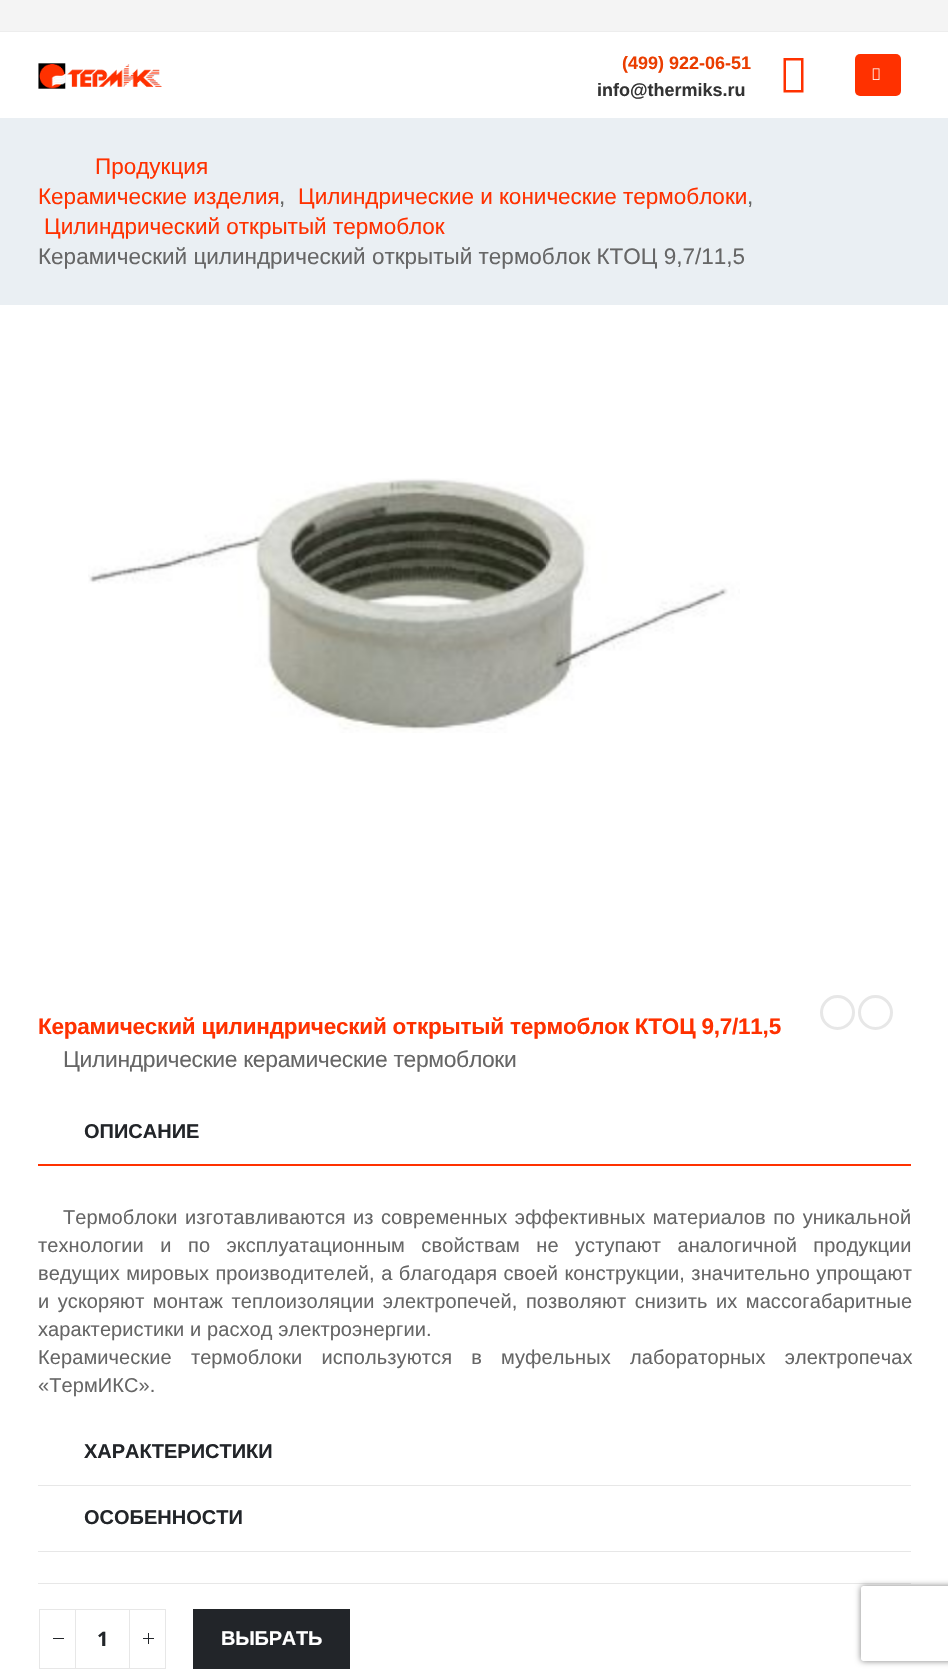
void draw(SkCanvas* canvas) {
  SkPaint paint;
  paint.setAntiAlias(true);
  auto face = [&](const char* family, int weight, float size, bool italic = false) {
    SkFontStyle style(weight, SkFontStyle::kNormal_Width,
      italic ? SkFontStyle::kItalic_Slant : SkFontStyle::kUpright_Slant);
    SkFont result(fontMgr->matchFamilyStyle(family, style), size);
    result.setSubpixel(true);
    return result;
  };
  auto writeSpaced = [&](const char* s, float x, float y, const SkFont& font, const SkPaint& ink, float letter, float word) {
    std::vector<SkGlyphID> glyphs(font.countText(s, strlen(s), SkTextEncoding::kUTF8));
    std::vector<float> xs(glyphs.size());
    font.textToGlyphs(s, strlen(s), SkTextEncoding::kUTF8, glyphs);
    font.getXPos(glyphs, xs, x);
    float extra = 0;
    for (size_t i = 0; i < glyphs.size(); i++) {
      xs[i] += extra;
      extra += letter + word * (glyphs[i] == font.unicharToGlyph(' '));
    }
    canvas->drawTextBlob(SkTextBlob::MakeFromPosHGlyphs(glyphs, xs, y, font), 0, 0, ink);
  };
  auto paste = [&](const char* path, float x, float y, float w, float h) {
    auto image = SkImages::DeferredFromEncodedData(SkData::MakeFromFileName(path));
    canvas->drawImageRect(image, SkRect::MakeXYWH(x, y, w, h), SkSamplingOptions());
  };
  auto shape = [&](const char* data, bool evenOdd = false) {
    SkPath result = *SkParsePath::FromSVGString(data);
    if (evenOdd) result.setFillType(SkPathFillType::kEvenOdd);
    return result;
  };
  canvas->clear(0xffffffff);
  paint.setColor(0xfff4f4f4);
  canvas->drawRect(SkRect::MakeXYWH(0, 0, 948, 31), paint);
  paint.setColor(0xffededed);
  canvas->drawRect(SkRect::MakeXYWH(0, 31, 948, 1), paint);
  paste("img/1.png", 38, 63, 124, 26);
  paint.setColor(0xffff3100);
  canvas->drawPath(shape("M783.5 92.5V58H803.5V92.5ZM786 90H801V60.5H786Z"), paint);
  canvas->drawRoundRect(SkRect::MakeXYWH(855, 54, 46, 42), 5, 5, paint);
  paste("img/2.png", 872, 68, 8, 12);
  paint.setColor(0xffeaeff3);
  canvas->drawRect(SkRect::MakeXYWH(0, 118, 948, 187), paint);
  paste("img/3.png", 88, 478, 652, 255);
  paint.setStroke(true);
  paint.setStrokeWidth(3);
  paint.setColor(0xffe7e7e7);
  canvas->drawCircle(837.5f, 1012.5f, 16, paint);
  canvas->drawCircle(875.5f, 1012.5f, 16, paint);
  paint.setStroke(false);
  {
    const struct { float x, y, w, h; SkColor color; } items[] = {
      {38, 1164, 873, 2, 0xffff3100},
      {38, 1485, 873, 1, 0xffe7e7e7},
      {38, 1551, 873, 1, 0xffe7e7e7},
      {38, 1583, 873, 1, 0xffe7e7e7},
      {75, 1609, 55, 1, 0xffe7e7e7},
      {75, 1668, 55, 1, 0xffe7e7e7},
    };
    for (auto [x, y, w, h, color] : items) {
      paint.setColor(color);
      canvas->drawRect(SkRect::MakeXYWH(x, y, w, h), paint);
    }
  }
  paint.setStroke(true);
  paint.setStrokeWidth(1);
  canvas->drawRect(SkRect::MakeXYWH(39.5f, 1609.5f, 36, 59), paint);
  paint.setStroke(false);
  paint.setColor(0xff222529);
  canvas->drawRect(SkRect::MakeXYWH(53, 1638, 11, 1), paint);
  paint.setStroke(true);
  paint.setColor(0xffe7e7e7);
  canvas->drawRect(SkRect::MakeXYWH(129.5f, 1609.5f, 36, 59), paint);
  paint.setStroke(false);
  {
    const struct { float x, y, w, h; SkColor color; } items[] = {
      {143, 1638, 11, 1, 0xff222529},
      {148, 1633, 1, 11, 0xff222529},
      {193, 1609, 157, 60, 0xff222529},
    };
    for (auto [x, y, w, h, color] : items) {
      paint.setColor(color);
      canvas->drawRect(SkRect::MakeXYWH(x, y, w, h), paint);
    }
  }
  canvas->save();
  canvas->clipPath(shape("M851 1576H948V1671H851ZM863.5 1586H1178.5C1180 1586 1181 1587 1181 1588.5V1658.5C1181 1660 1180 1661 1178.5 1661H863.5C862 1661 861 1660 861 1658.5V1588.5C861 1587 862 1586 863.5 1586Z", true), true);
  paint.setColor(0xff808080);
  paint.setMaskFilter(SkMaskFilter::MakeBlur(kNormal_SkBlurStyle, 3));
  canvas->drawRoundRect(SkRect::MakeXYWH(861, 1586, 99, 75), 2.5f, 2.5f, paint);
  paint.setMaskFilter(nullptr);
  canvas->restore();
  auto f0 = face("Liberation Sans", 700, 18);
  paint.setColor(0xffea3d00);
  canvas->drawString("(499) 922-06-51", 622, 69, f0, paint);
  paint.setColor(0xff333333);
  canvas->drawString("info@thermiks.ru", 597, 96, f0, paint);
  auto f1 = face("Liberation Sans", 400, 22.5f);
  paint.setColor(0xffff3100);
  canvas->drawString("Продукция", 95, 174, f1, paint);
  canvas->drawString("Керамические изделия", 38, 204, f1, paint);
  paint.setColor(0xff666666);
  canvas->drawString(",", 279, 204, f1, paint);
  paint.setColor(0xffff3100);
  canvas->drawString("Цилиндрические и конические термоблоки", 298, 204, f1, paint);
  paint.setColor(0xff666666);
  canvas->drawString(",", 747, 204, f1, paint);
  paint.setColor(0xffff3100);
  canvas->drawString("Цилиндрический открытый термоблок", 44, 234, f1, paint);
  paint.setColor(0xff666666);
  canvas->drawString("Керамический цилиндрический открытый термоблок КТОЦ 9,7/11,5", 38, 264, f1, paint);
  auto f2 = face("Liberation Sans", 700, 22.5f);
  paint.setColor(0xffff3100);
  writeSpaced("Керамический цилиндрический открытый термоблок КТОЦ 9,7/11,5", 38, 1034, f2, paint, -0.22f, 0);
  auto f3 = face("Liberation Sans", 400, 22.9f);
  paint.setColor(0xff666666);
  writeSpaced("Цилиндрические керамические термоблоки", 63, 1067, f3, paint, -0.35f, 0);
  auto f4 = face("Liberation Sans", 700, 20);
  paint.setColor(0xff222529);
  canvas->drawString("ОПИСАНИЕ", 84, 1138, f4, paint);
  auto f5 = face("Liberation Sans", 400, 20);
  paint.setColor(0xff666666);
  writeSpaced("Термоблоки изготавливаются из современных эффективных материалов по уникальной", 63, 1224, f5, paint, 0.1f, 1.75f);
  writeSpaced("технологии и по эксплуатационным свойствам не уступают аналогичной продукции", 38, 1252, f5, paint, 0.1f, 10.75f);
  writeSpaced("ведущих мировых производителей, а благодаря своей конструкции, значительно упрощают", 38, 1280, f5, paint, 0.1f, 0.75f);
  writeSpaced("и ускоряют монтаж теплоизоляции электропечей, позволяют снизить их массогабаритные", 38, 1308, f5, paint, 0.1f, 2.75f);
  writeSpaced("характеристики и расход электроэнергии.", 38, 1336, f5, paint, 0.1f, 0);
  writeSpaced("Керамические термоблоки используются в муфельных лабораторных электропечах", 38, 1364, f5, paint, 0.1f, 13.5f);
  writeSpaced("«ТермИКС».", 38, 1392, f5, paint, 0.1f, 0);
  paint.setColor(0xff222529);
  canvas->drawString("ХАРАКТЕРИСТИКИ", 84, 1458, f4, paint);
  canvas->drawString("ОСОБЕННОСТИ", 84, 1524, f4, paint);
  auto f6 = face("Open Sans", 700, 20);
  canvas->drawString("1", 97, 1646, f6, paint);
  paint.setColor(0xffffffff);
  writeSpaced("ВЫБРАТЬ", 221, 1645, f4, paint, -0.25f, 0);
}
